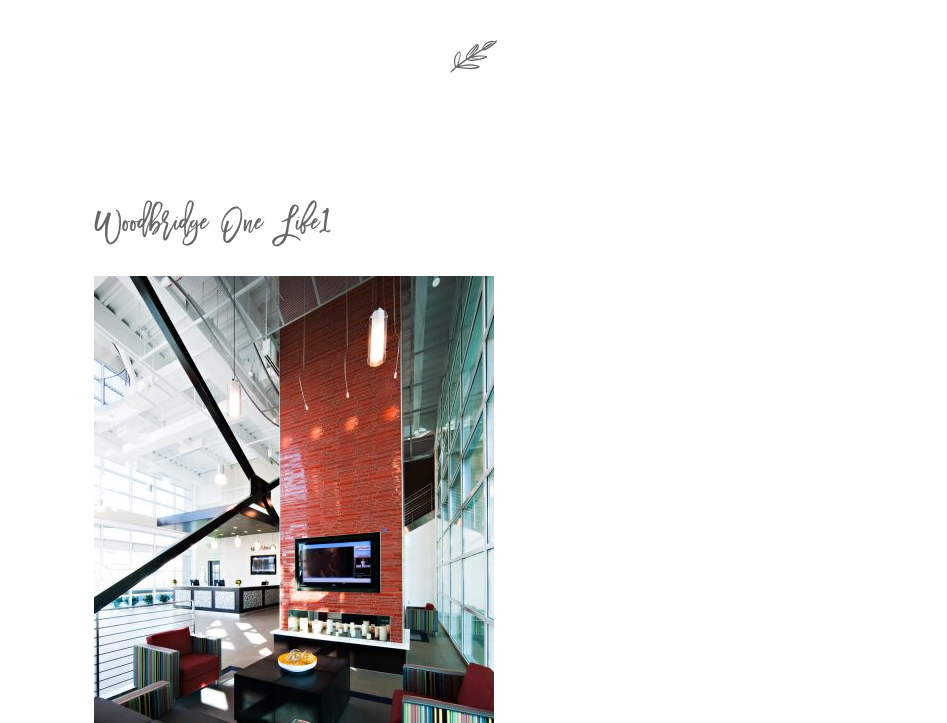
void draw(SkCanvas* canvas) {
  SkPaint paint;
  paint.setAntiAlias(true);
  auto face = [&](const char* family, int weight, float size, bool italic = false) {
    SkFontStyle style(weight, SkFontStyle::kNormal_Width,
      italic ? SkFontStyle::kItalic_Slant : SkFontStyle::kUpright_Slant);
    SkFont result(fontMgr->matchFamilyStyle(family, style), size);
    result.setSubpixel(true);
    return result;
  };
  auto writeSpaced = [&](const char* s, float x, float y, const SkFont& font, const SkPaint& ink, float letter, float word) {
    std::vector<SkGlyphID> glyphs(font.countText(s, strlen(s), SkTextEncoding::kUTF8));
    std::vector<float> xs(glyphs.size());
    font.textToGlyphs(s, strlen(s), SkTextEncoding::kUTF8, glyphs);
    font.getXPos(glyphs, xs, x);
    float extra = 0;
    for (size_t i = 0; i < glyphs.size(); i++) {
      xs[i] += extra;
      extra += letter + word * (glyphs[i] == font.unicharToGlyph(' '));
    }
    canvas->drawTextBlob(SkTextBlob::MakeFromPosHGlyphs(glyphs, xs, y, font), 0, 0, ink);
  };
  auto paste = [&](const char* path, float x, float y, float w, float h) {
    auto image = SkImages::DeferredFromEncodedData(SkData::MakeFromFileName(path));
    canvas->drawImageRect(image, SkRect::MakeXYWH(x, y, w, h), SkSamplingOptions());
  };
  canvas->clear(0xffffffff);
  paste("img/1.png", 450, 40, 47, 33);
  paste("img/2.png", 94, 276, 400, 447);
  auto f0 = face("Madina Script", 400, 30);
  paint.setColor(0xff666666);
  writeSpaced("Woodbridge One Life1", 94, 231, f0, paint, 0.5f, 0);
}
